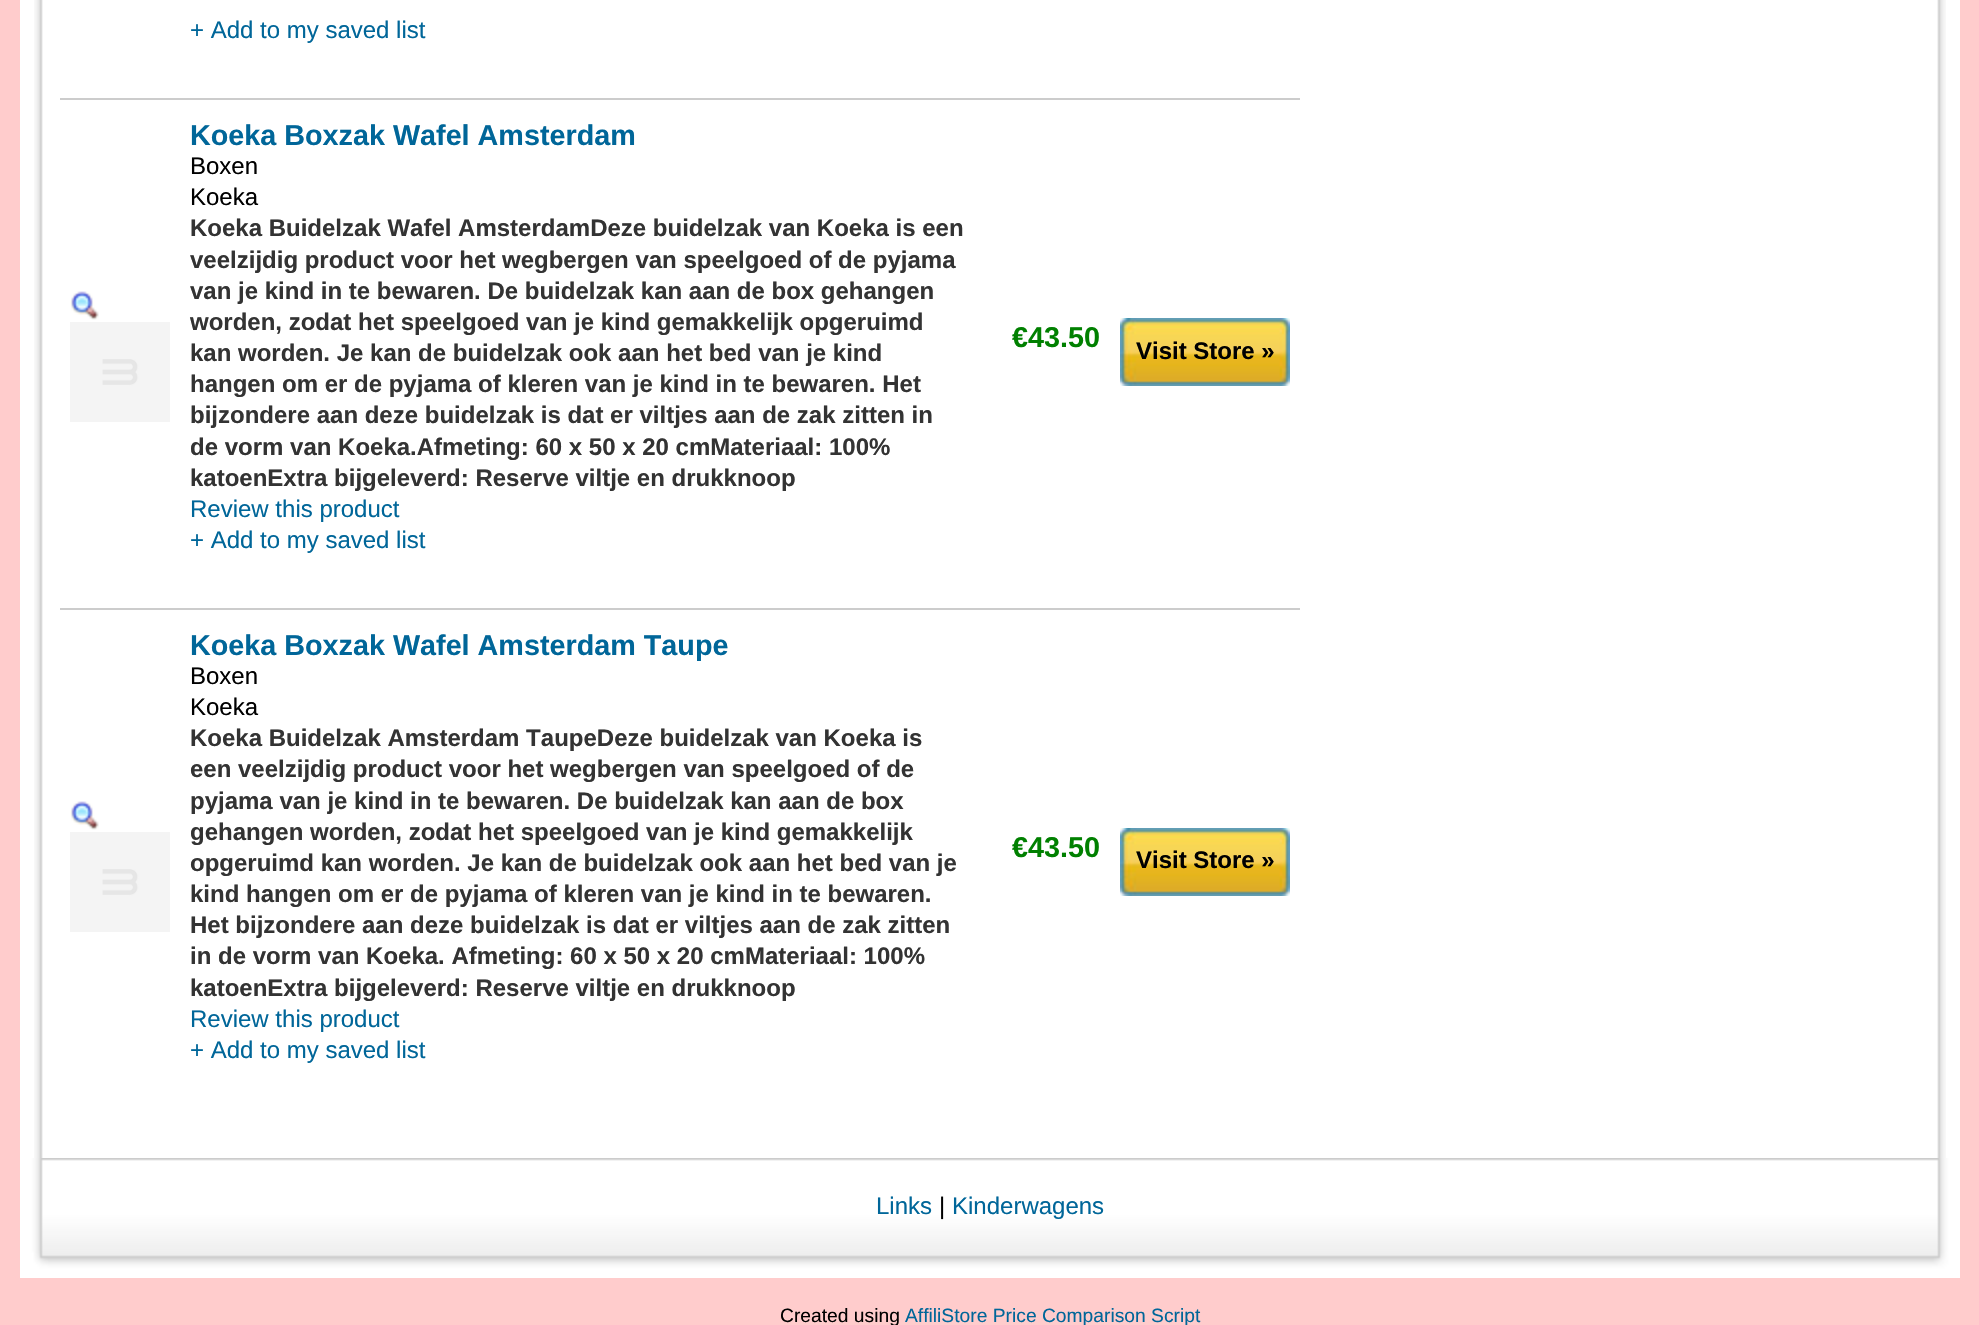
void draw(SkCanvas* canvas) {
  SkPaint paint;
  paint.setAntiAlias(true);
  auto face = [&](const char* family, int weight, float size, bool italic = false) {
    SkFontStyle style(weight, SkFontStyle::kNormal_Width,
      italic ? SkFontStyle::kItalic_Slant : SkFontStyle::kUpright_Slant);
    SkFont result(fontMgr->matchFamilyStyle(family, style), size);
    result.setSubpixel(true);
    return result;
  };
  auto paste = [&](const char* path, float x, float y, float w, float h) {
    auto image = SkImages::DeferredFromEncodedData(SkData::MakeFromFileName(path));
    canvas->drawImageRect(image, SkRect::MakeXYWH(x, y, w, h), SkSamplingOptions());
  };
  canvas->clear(0xffffcccc);
  paint.setColor(0xffffffff);
  canvas->drawRect(SkRect::MakeXYWH(20, 0, 1940, 1158), paint);
  paste("img/1.png", 34, 0, 1912, 1158);
  paint.setColor(0xffcccccc);
  canvas->drawRect(SkRect::MakeXYWH(60, 98, 1240, 2), paint);
  paste("img/2.png", 70, 291, 29, 29);
  paste("img/3.png", 70, 322, 100, 100);
  paste("img/4.png", 1120, 318, 170, 68);
  canvas->drawRect(SkRect::MakeXYWH(60, 608, 1240, 2), paint);
  paste("img/2.png", 70, 801, 29, 29);
  paste("img/5.png", 70, 832, 100, 100);
  paste("img/4.png", 1120, 828, 170, 68);
  paste("img/6.png", 20, 1158, 1940, 120);
  auto f0 = face("Liberation Sans", 400, 24);
  paint.setColor(0xff006699);
  canvas->drawString("+ Add to my saved list", 190, 38, f0, paint);
  auto f1 = face("Liberation Sans", 700, 28.75f);
  canvas->drawString("Koeka Boxzak Wafel Amsterdam", 190, 145, f1, paint);
  paint.setColor(0xff000000);
  canvas->drawString("Boxen", 190, 174, f0, paint);
  canvas->drawString("Koeka", 190, 205, f0, paint);
  auto f2 = face("Liberation Sans", 700, 24);
  paint.setColor(0xff333333);
  {
    const struct { const char* s; float x, y; } items[] = {
      {"Koeka Buidelzak Wafel AmsterdamDeze buidelzak van Koeka is een", 190, 236},
      {"veelzijdig product voor het wegbergen van speelgoed of de pyjama", 190, 268},
      {"van je kind in te bewaren. De buidelzak kan aan de box gehangen", 190, 299},
      {"worden, zodat het speelgoed van je kind gemakkelijk opgeruimd", 190, 330},
      {"kan worden. Je kan de buidelzak ook aan het bed van je kind", 190, 361},
      {"hangen om er de pyjama of kleren van je kind in te bewaren. Het", 190, 392},
      {"bijzondere aan deze buidelzak is dat er viltjes aan de zak zitten in", 190, 423},
      {"de vorm van Koeka.Afmeting: 60 x 50 x 20 cmMateriaal: 100%", 190, 455},
      {"katoenExtra bijgeleverd: Reserve viltje en drukknoop", 190, 486},
    };
    for (auto [s, x, y] : items) {
      canvas->drawString(s, x, y, f2, paint);
    }
  }
  paint.setColor(0xff006699);
  canvas->drawString("Review this product", 190, 517, f0, paint);
  canvas->drawString("+ Add to my saved list", 190, 548, f0, paint);
  paint.setColor(0xff008000);
  canvas->drawString("€43.50", 1012, 347, f1, paint);
  paint.setColor(0xff000000);
  canvas->drawString("Visit Store »", 1136, 359, f2, paint);
  paint.setColor(0xff006699);
  canvas->drawString("Koeka Boxzak Wafel Amsterdam Taupe", 190, 655, f1, paint);
  paint.setColor(0xff000000);
  canvas->drawString("Boxen", 190, 684, f0, paint);
  canvas->drawString("Koeka", 190, 715, f0, paint);
  paint.setColor(0xff333333);
  {
    const struct { const char* s; float x, y; } items[] = {
      {"Koeka Buidelzak Amsterdam TaupeDeze buidelzak van Koeka is", 190, 746},
      {"een veelzijdig product voor het wegbergen van speelgoed of de", 190, 777},
      {"pyjama van je kind in te bewaren. De buidelzak kan aan de box", 190, 809},
      {"gehangen worden, zodat het speelgoed van je kind gemakkelijk", 190, 840},
      {"opgeruimd kan worden. Je kan de buidelzak ook aan het bed van je", 190, 871},
      {"kind hangen om er de pyjama of kleren van je kind in te bewaren.", 190, 902},
      {"Het bijzondere aan deze buidelzak is dat er viltjes aan de zak zitten", 190, 933},
      {"in de vorm van Koeka. Afmeting: 60 x 50 x 20 cmMateriaal: 100%", 190, 964},
      {"katoenExtra bijgeleverd: Reserve viltje en drukknoop", 190, 996},
    };
    for (auto [s, x, y] : items) {
      canvas->drawString(s, x, y, f2, paint);
    }
  }
  paint.setColor(0xff006699);
  canvas->drawString("Review this product", 190, 1027, f0, paint);
  canvas->drawString("+ Add to my saved list", 190, 1058, f0, paint);
  paint.setColor(0xff008000);
  canvas->drawString("€43.50", 1012, 857, f1, paint);
  paint.setColor(0xff000000);
  canvas->drawString("Visit Store »", 1136, 868, f2, paint);
  paint.setColor(0xff006699);
  canvas->drawString("Links", 876, 1214, f0, paint);
  paint.setColor(0xff000000);
  canvas->drawString("|", 939, 1214, f0, paint);
  paint.setColor(0xff006699);
  canvas->drawString("Kinderwagens", 952, 1214, f0, paint);
  auto f3 = face("Liberation Sans", 400, 19.25f);
  paint.setColor(0xff000000);
  canvas->drawString("Created using", 780, 1322, f3, paint);
  paint.setColor(0xff006699);
  canvas->drawString("AffiliStore Price Comparison Script", 905, 1322, f3, paint);
}
